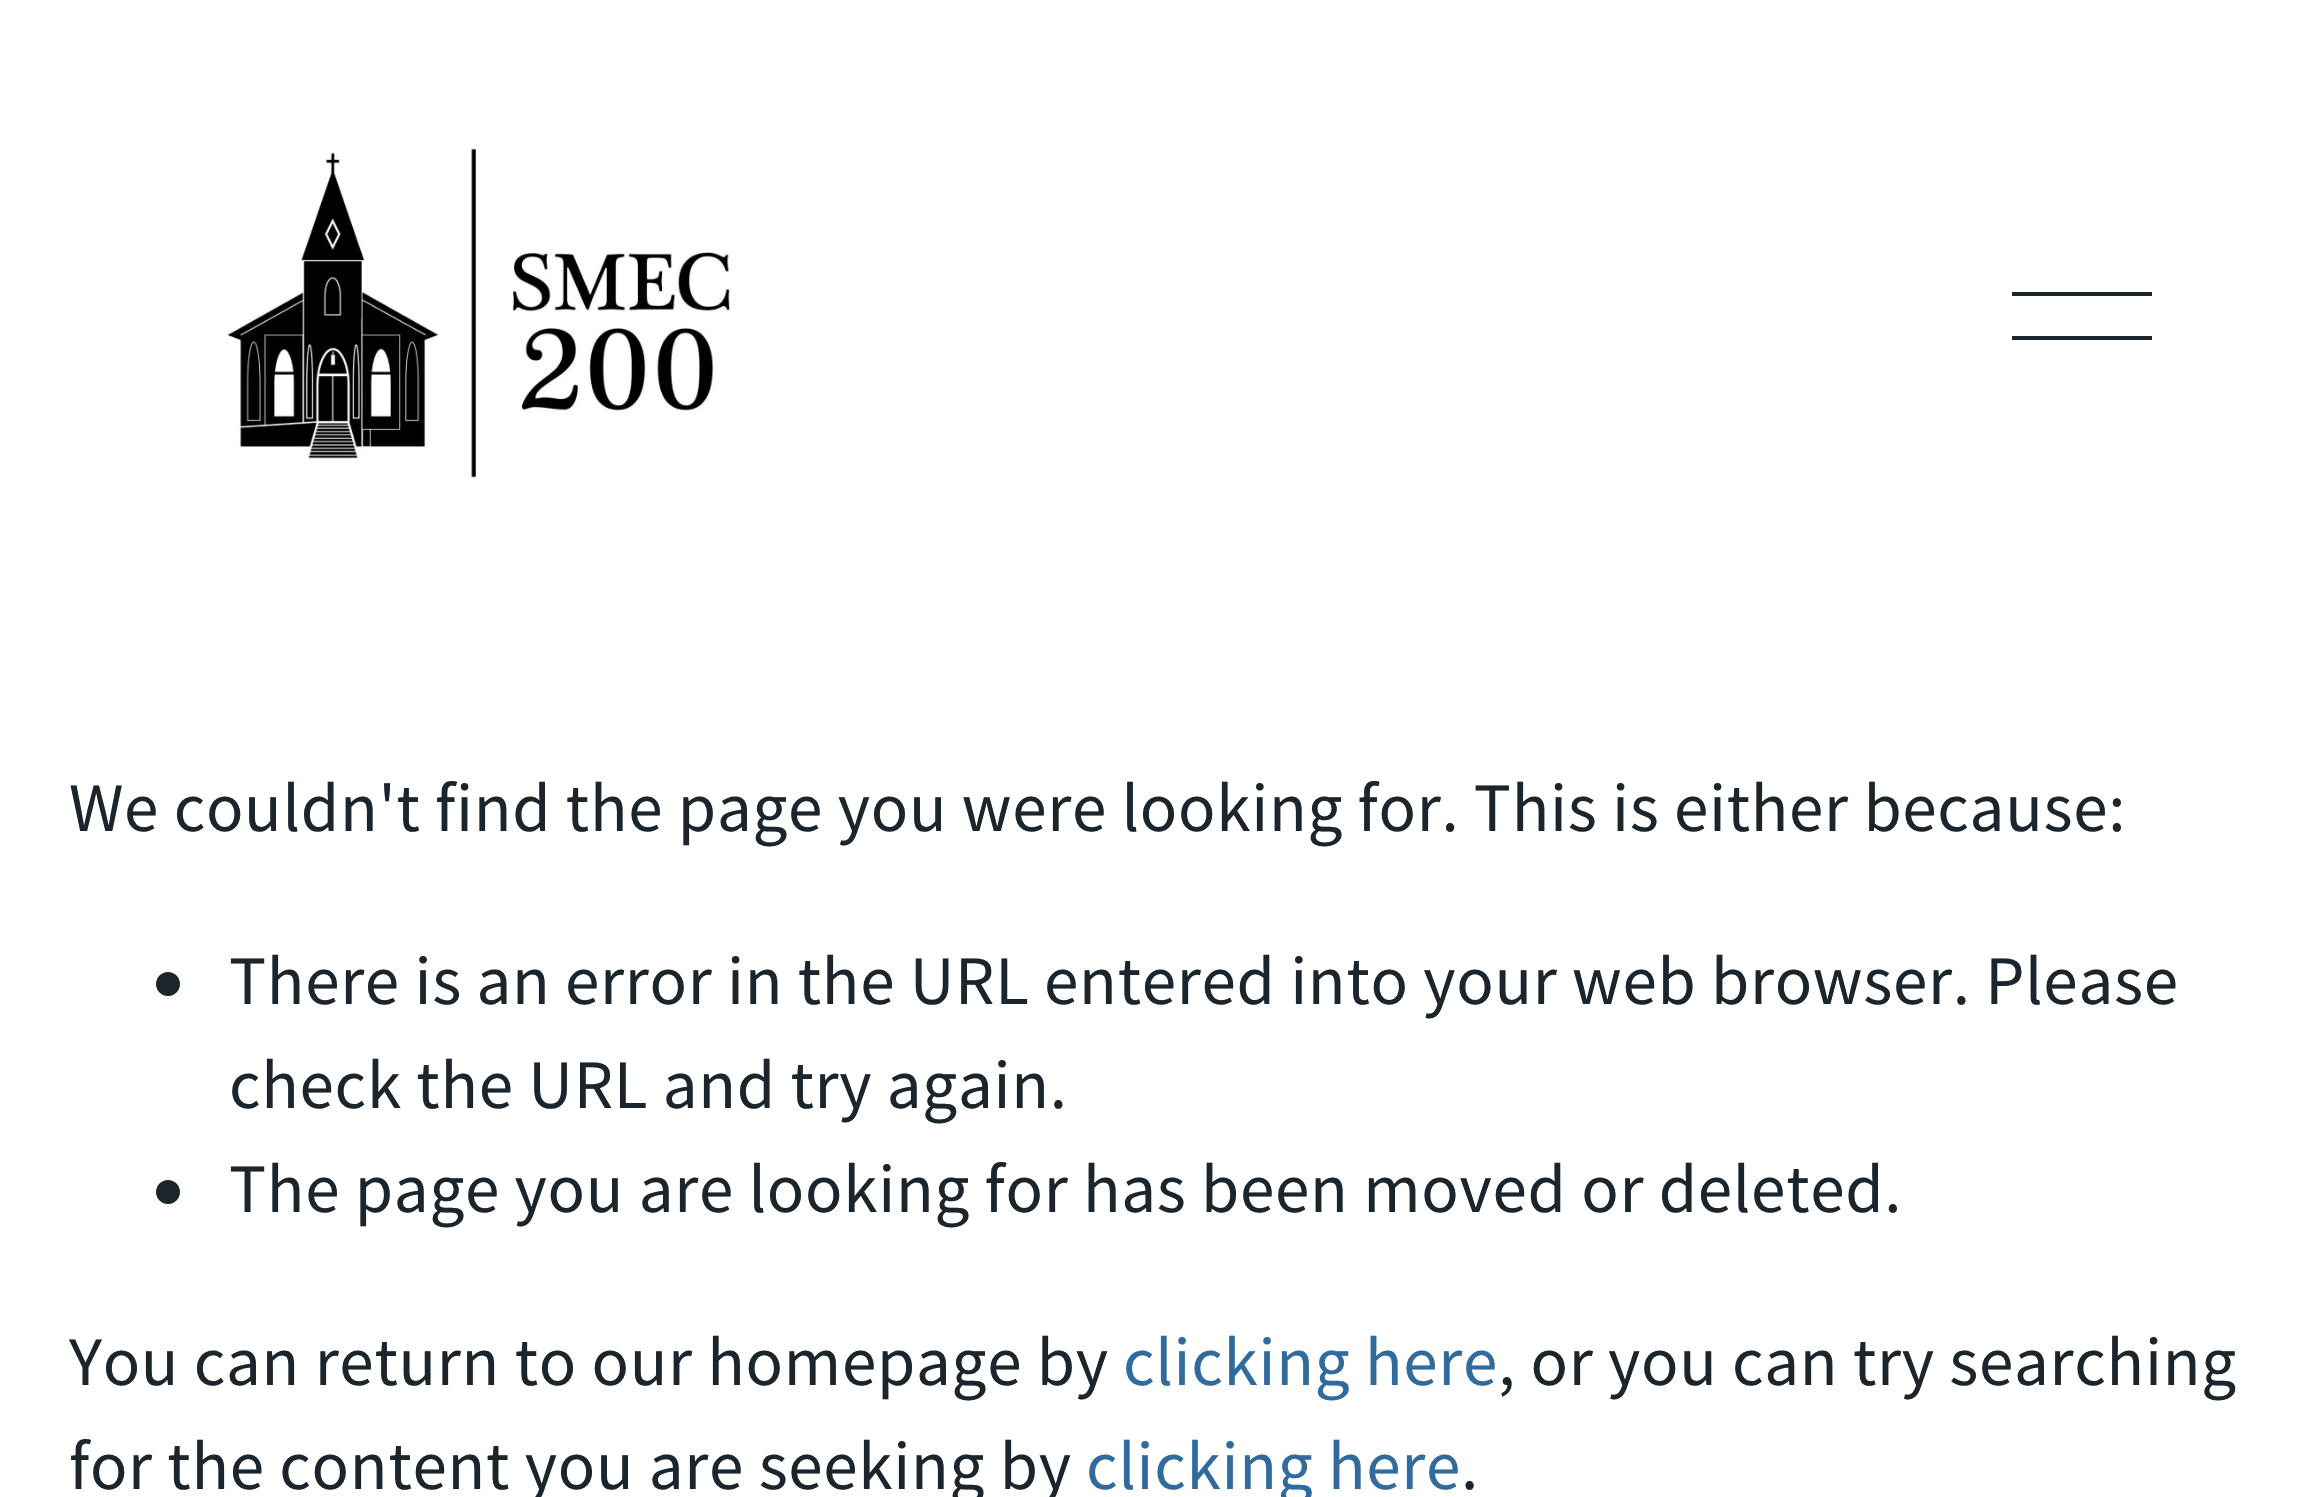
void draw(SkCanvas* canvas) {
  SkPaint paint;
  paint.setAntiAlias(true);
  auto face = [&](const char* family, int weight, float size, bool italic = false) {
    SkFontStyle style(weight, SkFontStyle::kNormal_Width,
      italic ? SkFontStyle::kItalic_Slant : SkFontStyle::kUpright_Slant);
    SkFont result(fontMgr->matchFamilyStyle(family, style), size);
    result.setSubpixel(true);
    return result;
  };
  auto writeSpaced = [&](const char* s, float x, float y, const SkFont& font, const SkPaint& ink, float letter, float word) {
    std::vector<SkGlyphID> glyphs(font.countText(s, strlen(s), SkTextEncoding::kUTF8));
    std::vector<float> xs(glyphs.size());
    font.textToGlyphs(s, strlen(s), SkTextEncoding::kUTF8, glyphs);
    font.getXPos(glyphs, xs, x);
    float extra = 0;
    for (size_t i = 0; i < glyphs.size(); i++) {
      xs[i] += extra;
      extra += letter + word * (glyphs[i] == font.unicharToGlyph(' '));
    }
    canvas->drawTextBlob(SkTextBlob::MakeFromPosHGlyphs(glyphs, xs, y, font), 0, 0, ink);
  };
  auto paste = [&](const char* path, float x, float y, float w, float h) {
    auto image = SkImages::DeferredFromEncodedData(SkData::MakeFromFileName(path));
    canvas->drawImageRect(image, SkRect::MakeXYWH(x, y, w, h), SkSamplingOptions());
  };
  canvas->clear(0xffffffff);
  paste("img/1.png", 227, 148, 503, 331);
  paint.setColor(0xff1d252c);
  canvas->drawRect(SkRect::MakeXYWH(2012, 292, 140, 4), paint);
  canvas->drawRect(SkRect::MakeXYWH(2012, 336, 140, 4), paint);
  canvas->drawCircle(168, 984, 12, paint);
  canvas->drawCircle(168, 1192, 12, paint);
  auto f0 = face("Source Sans Pro", 400, 69.2f);
  {
    const struct { const char* s; float x, y; } items[] = {
      {"We couldn't find the page you were looking for. This is either because:", 69, 831},
      {"There is an error in the URL entered into your web browser. Please", 229, 1004},
      {"check the URL and try again.", 229, 1108},
      {"The page you are looking for has been moved or deleted.", 229, 1212},
      {"You can return to our homepage by", 69, 1385},
    };
    for (auto [s, x, y] : items) {
      writeSpaced(s, x, y, f0, paint, 0.7f, 0);
    }
  }
  paint.setColor(0xff316b9e);
  writeSpaced("clicking here", 1123, 1385, f0, paint, 0.7f, 0);
  paint.setColor(0xff1d252c);
  writeSpaced(", or you can try searching", 1498, 1385, f0, paint, 0.7f, 0);
  writeSpaced("for the content you are seeking by", 69, 1489, f0, paint, 0.7f, 0);
  paint.setColor(0xff316b9e);
  writeSpaced("clicking here", 1086, 1489, f0, paint, 0.7f, 0);
  paint.setColor(0xff1d252c);
  writeSpaced(".", 1461, 1489, f0, paint, 0.7f, 0);
}
